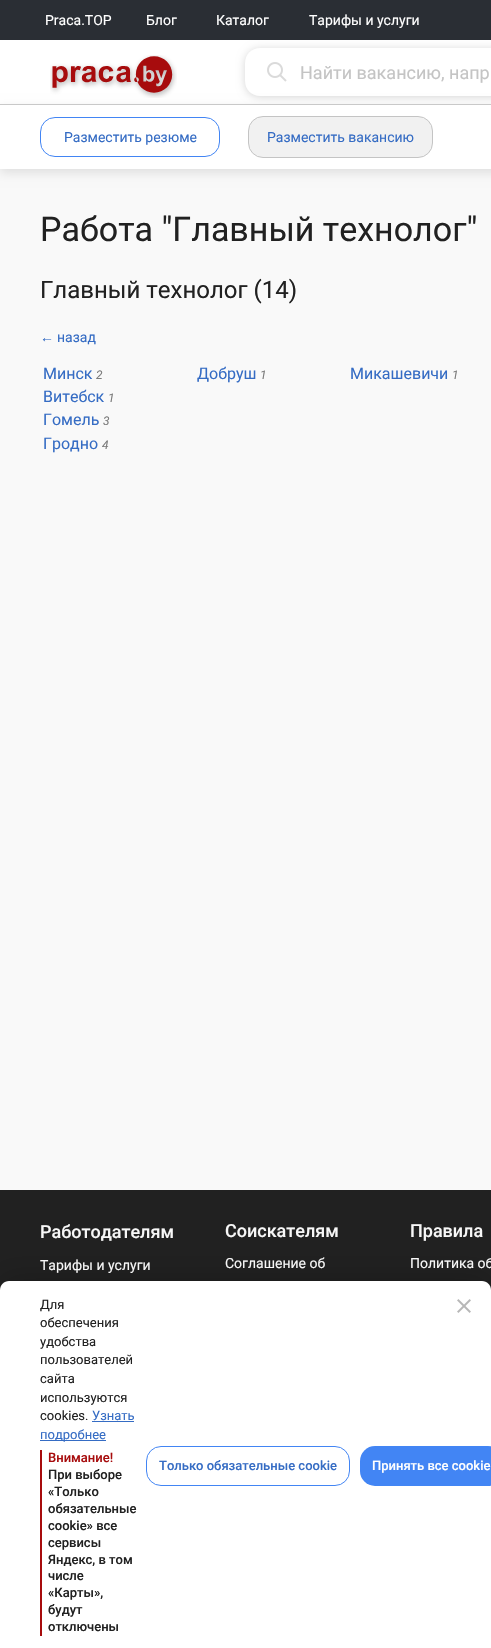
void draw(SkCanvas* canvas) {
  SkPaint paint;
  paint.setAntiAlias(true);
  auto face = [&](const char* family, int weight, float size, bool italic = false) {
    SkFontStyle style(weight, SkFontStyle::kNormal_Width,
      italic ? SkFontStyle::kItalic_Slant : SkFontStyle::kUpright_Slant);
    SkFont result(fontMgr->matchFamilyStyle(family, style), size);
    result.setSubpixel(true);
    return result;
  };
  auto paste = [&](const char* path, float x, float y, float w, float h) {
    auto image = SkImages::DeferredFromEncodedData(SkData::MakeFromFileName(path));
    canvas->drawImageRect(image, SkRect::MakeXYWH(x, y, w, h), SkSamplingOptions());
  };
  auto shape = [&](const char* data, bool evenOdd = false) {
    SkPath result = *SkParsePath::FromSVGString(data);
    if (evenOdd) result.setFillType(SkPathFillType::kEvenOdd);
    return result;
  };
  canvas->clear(0xfff9f9f9);
  paint.setColor(0xffffffff);
  canvas->drawRect(SkRect::MakeXYWH(0, 40, 491, 64), paint);
  paint.setColor(0x29000000);
  paint.setMaskFilter(SkMaskFilter::MakeBlur(kNormal_SkBlurStyle, 4));
  canvas->drawRoundRect(SkRect::MakeXYWH(245, 49, 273, 48), 15, 15, paint);
  paint.setMaskFilter(nullptr);
  paint.setColor(0xff2a2e34);
  canvas->drawRect(SkRect::MakeXYWH(0, 0, 491, 40), paint);
  paste("img/1.png", 50, 55, 127, 43);
  paint.setColor(0xffffffff);
  canvas->drawPath(shape("M260 48H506V96H260C251.5 96 245 89.5 245 81V63C245 54.5 251.5 48 260 48Z"), paint);
  paste("img/2.png", 267, 62, 20, 20);
  paint.setColor(0x1a000000);
  paint.setMaskFilter(SkMaskFilter::MakeBlur(kNormal_SkBlurStyle, 5));
  canvas->drawRect(SkRect::MakeXYWH(0, 108, 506, 65), paint);
  paint.setMaskFilter(nullptr);
  paint.setColor(0xffffffff);
  canvas->drawRect(SkRect::MakeXYWH(0, 105, 491, 64), paint);
  paint.setColor(0xffc9c9c9);
  canvas->drawRect(SkRect::MakeXYWH(0, 104, 491, 1), paint);
  paint.setStroke(true);
  paint.setStrokeWidth(1);
  paint.setColor(0xff4285f4);
  canvas->drawRoundRect(SkRect::MakeXYWH(40.5f, 117.5f, 179, 39), 14.5f, 14.5f, paint);
  paint.setStroke(false);
  paint.setColor(0xfff1f1f1);
  canvas->drawRoundRect(SkRect::MakeXYWH(248.5f, 116.5f, 184, 41), 14.5f, 14.5f, paint);
  paint.setStroke(true);
  paint.setColor(0xffc4c4c4);
  canvas->drawRoundRect(SkRect::MakeXYWH(248.5f, 116.5f, 184, 41), 14.5f, 14.5f, paint);
  paint.setStroke(false);
  paint.setColor(0xff212121);
  canvas->drawRect(SkRect::MakeXYWH(0, 1190, 491, 100), paint);
  paint.setColor(0x38000000);
  paint.setMaskFilter(SkMaskFilter::MakeBlur(kNormal_SkBlurStyle, 15));
  canvas->drawRoundRect(SkRect::MakeXYWH(0, 1279, 491, 367), 9, 9, paint);
  paint.setMaskFilter(nullptr);
  paint.setColor(0xffffffff);
  canvas->drawPath(shape("M9 1281H482C487 1281 491 1285 491 1290V1648H0V1290C0 1285 4 1281 9 1281Z"), paint);
  {
    const struct { float x, y, w, h; SkColor color; } items[] = {
      {92, 1421, 42, 1, 0xff356cc4},
      {40, 1440, 66, 1, 0xff356cc4},
      {40, 1450, 2, 186, 0xffa70c0d},
    };
    for (auto [x, y, w, h, color] : items) {
      paint.setColor(color);
      canvas->drawRect(SkRect::MakeXYWH(x, y, w, h), paint);
    }
  }
  paint.setStroke(true);
  paint.setColor(0xff4285f4);
  canvas->drawRoundRect(SkRect::MakeXYWH(146.5f, 1446.5f, 203, 39), 14.5f, 14.5f, paint);
  paint.setStroke(false);
  canvas->drawRoundRect(SkRect::MakeXYWH(360, 1446, 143, 40), 15, 15, paint);
  paste("img/3.png", 457, 1299, 14, 14);
  auto f0 = face("Roboto", 400, 14);
  paint.setColor(0xffffffff);
  {
    const struct { const char* s; float x, y; } items[] = {
      {"Praca.TOP", 45, 25},
      {"Блог", 146, 25},
      {"Каталог", 216, 25},
      {"Тарифы и услуги", 309, 25},
    };
    for (auto [s, x, y] : items) {
      canvas->drawString(s, x, y, f0, paint);
    }
  }
  auto f1 = face("Roboto", 400, 18);
  paint.setColor(0xffc4c4c4);
  canvas->drawString("Найти вакансию, напр", 300, 79, f1, paint);
  paint.setColor(0xff356cc4);
  canvas->drawString("Разместить резюме", 64, 142, f0, paint);
  canvas->drawString("Разместить вакансию", 267, 142, f0, paint);
  auto f2 = face("Roboto", 400, 34);
  paint.setColor(0xff212121);
  canvas->drawString("Работа \"Главный технолог\"", 40, 241, f2, paint);
  auto f3 = face("Roboto", 400, 24);
  canvas->drawString("Главный технолог (14)", 40, 298, f3, paint);
  auto f4 = face("Liberation Sans", 400, 14);
  paint.setColor(0xff356cc4);
  canvas->drawString("←", 40, 342, f4, paint);
  canvas->drawString("назад", 57, 342, f0, paint);
  auto f5 = face("Roboto", 400, 16);
  canvas->drawString("Минск", 43, 379, f5, paint);
  auto f6 = face("Roboto", 400, 12, true);
  paint.setColor(0xff7c7c7c);
  canvas->drawString("2", 96, 379, f6, paint);
  paint.setColor(0xff356cc4);
  canvas->drawString("Витебск", 43, 402, f5, paint);
  paint.setColor(0xff7c7c7c);
  canvas->drawString("1", 108, 402, f6, paint);
  paint.setColor(0xff356cc4);
  canvas->drawString("Гомель", 43, 425, f5, paint);
  paint.setColor(0xff7c7c7c);
  canvas->drawString("3", 103, 425, f6, paint);
  paint.setColor(0xff356cc4);
  canvas->drawString("Гродно", 43, 449, f5, paint);
  paint.setColor(0xff7c7c7c);
  canvas->drawString("4", 102, 449, f6, paint);
  paint.setColor(0xff356cc4);
  canvas->drawString("Добруш", 197, 379, f5, paint);
  paint.setColor(0xff7c7c7c);
  canvas->drawString("1", 260, 379, f6, paint);
  paint.setColor(0xff356cc4);
  canvas->drawString("Микашевичи", 350, 379, f5, paint);
  paint.setColor(0xff7c7c7c);
  canvas->drawString("1", 452, 379, f6, paint);
  auto f7 = face("Roboto", 500, 18);
  paint.setColor(0xfff7f7f7);
  canvas->drawString("Работодателям", 40, 1238, f7, paint);
  canvas->drawString("Тарифы и услуги", 40, 1270, f0, paint);
  canvas->drawString("Соискателям", 225, 1237, f7, paint);
  canvas->drawString("Соглашение об", 225, 1268, f0, paint);
  canvas->drawString("Правила", 410, 1237, f7, paint);
  canvas->drawString("Политика об", 410, 1268, f0, paint);
  auto f8 = face("Roboto", 400, 13);
  paint.setColor(0xff212121);
  {
    const struct { const char* s; float x, y; } items[] = {
      {"Для", 40, 1309},
      {"обеспечения", 40, 1327},
      {"удобства", 40, 1346},
      {"пользователей", 40, 1364},
      {"сайта", 40, 1383},
      {"используются", 40, 1402},
      {"cookies.", 40, 1420},
    };
    for (auto [s, x, y] : items) {
      canvas->drawString(s, x, y, f8, paint);
    }
  }
  paint.setColor(0xff356cc4);
  canvas->drawString("Узнать", 92, 1420, f8, paint);
  canvas->drawString("подробнее", 40, 1439, f8, paint);
  auto f9 = face("Roboto", 500, 13);
  paint.setColor(0xffa70c0d);
  canvas->drawString("Внимание!", 48, 1462, f9, paint);
  paint.setColor(0xff212121);
  {
    const struct { const char* s; float x, y; } items[] = {
      {"При выборе", 48, 1479},
      {"«Только", 48, 1496},
      {"обязательные", 48, 1513},
      {"cookie» все", 48, 1530},
      {"сервисы", 48, 1547},
      {"Яндекс, в том", 48, 1564},
      {"числе", 48, 1580},
      {"«Карты»,", 48, 1597},
      {"будут", 48, 1614},
      {"отключены", 48, 1631},
    };
    for (auto [s, x, y] : items) {
      canvas->drawString(s, x, y, f9, paint);
    }
  }
  paint.setColor(0xff356cc4);
  canvas->drawString("Только обязательные cookie", 159, 1470, f9, paint);
  paint.setColor(0xffffffff);
  canvas->drawString("Принять все cookie", 372, 1470, f9, paint);
}
